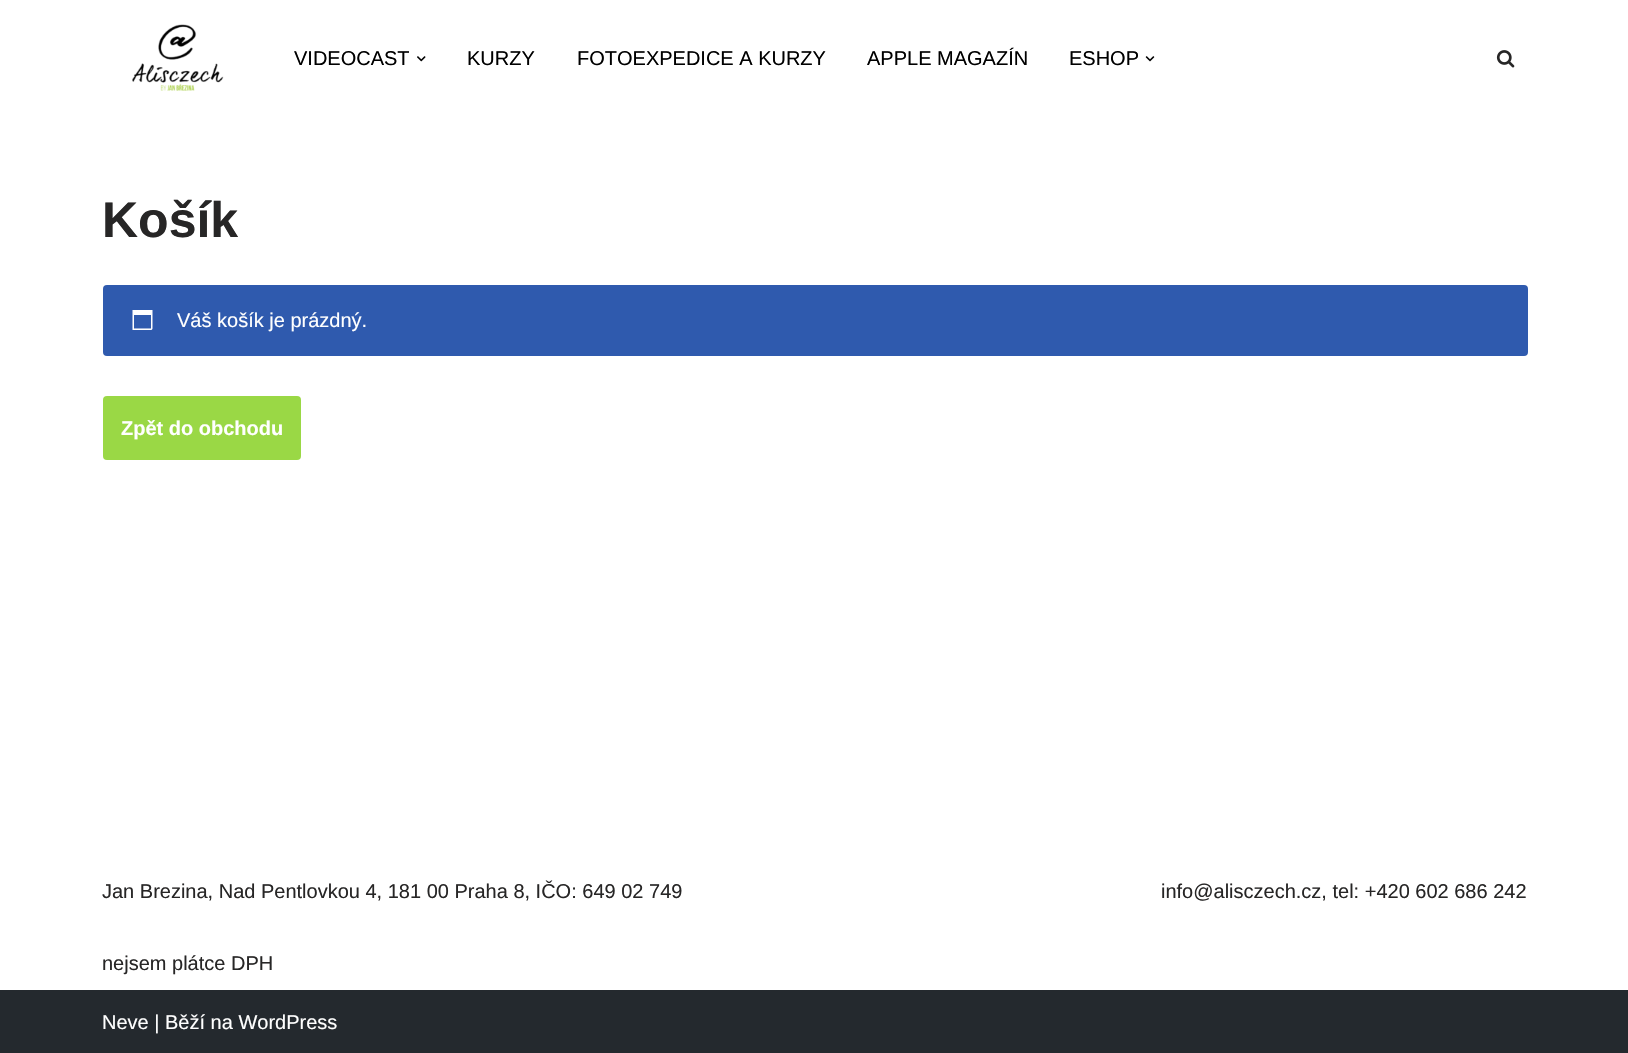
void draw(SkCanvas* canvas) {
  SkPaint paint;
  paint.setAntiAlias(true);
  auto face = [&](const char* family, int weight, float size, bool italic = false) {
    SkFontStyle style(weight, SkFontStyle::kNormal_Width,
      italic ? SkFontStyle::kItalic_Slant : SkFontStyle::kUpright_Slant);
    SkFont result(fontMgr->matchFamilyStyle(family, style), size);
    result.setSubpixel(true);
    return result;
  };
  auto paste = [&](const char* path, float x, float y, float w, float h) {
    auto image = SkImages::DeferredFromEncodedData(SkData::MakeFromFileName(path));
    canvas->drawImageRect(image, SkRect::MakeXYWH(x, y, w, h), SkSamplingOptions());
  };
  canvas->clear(0xffffffff);
  paste("img/1.png", 132, 24, 92, 67);
  paste("img/2.png", 417, 56, 9, 6);
  paste("img/3.png", 1145, 56, 10, 6);
  paste("img/4.png", 1496, 50, 19, 18);
  paint.setColor(0xff2f5aae);
  canvas->drawRoundRect(SkRect::MakeXYWH(103, 285, 1425, 71), 4, 4, paint);
  paste("img/5.png", 132, 310, 21, 20);
  paint.setColor(0xff9ad845);
  canvas->drawRoundRect(SkRect::MakeXYWH(103, 396, 198, 64), 4, 4, paint);
  paint.setColor(0xff24292e);
  canvas->drawRect(SkRect::MakeXYWH(0, 990, 1628, 63), paint);
  auto f0 = face("Liberation Sans", 400, 20);
  paint.setColor(0xff000000);
  {
    const struct { const char* s; float x, y; } items[] = {
      {"VIDEOCAST", 294, 65},
      {"KURZY", 467, 65},
      {"FOTOEXPEDICE A KURZY", 577, 65},
      {"APPLE MAGAZÍN", 867, 65},
      {"ESHOP", 1069, 65},
    };
    for (auto [s, x, y] : items) {
      canvas->drawString(s, x, y, f0, paint);
    }
  }
  auto f1 = face("Liberation Sans", 700, 50);
  paint.setColor(0xff272626);
  canvas->drawString("Košík", 102, 237, f1, paint);
  paint.setColor(0xffffffff);
  canvas->drawString("Váš košík je prázdný.", 177, 327, f0, paint);
  auto f2 = face("Liberation Sans", 700, 20);
  canvas->drawString("Zpět do obchodu", 121, 435, f2, paint);
  paint.setColor(0xff272626);
  {
    const struct { const char* s; float x, y; } items[] = {
      {"Jan Brezina, Nad Pentlovkou 4, 181 00 Praha 8, IČO: 649 02 749", 102, 898},
      {"nejsem plátce DPH", 102, 970},
      {"info@alisczech.cz, tel: +420 602 686 242", 1161, 898},
    };
    for (auto [s, x, y] : items) {
      canvas->drawString(s, x, y, f0, paint);
    }
  }
  paint.setColor(0xffffffff);
  canvas->drawString("Neve | Běží na WordPress", 102, 1029, f0, paint);
}
